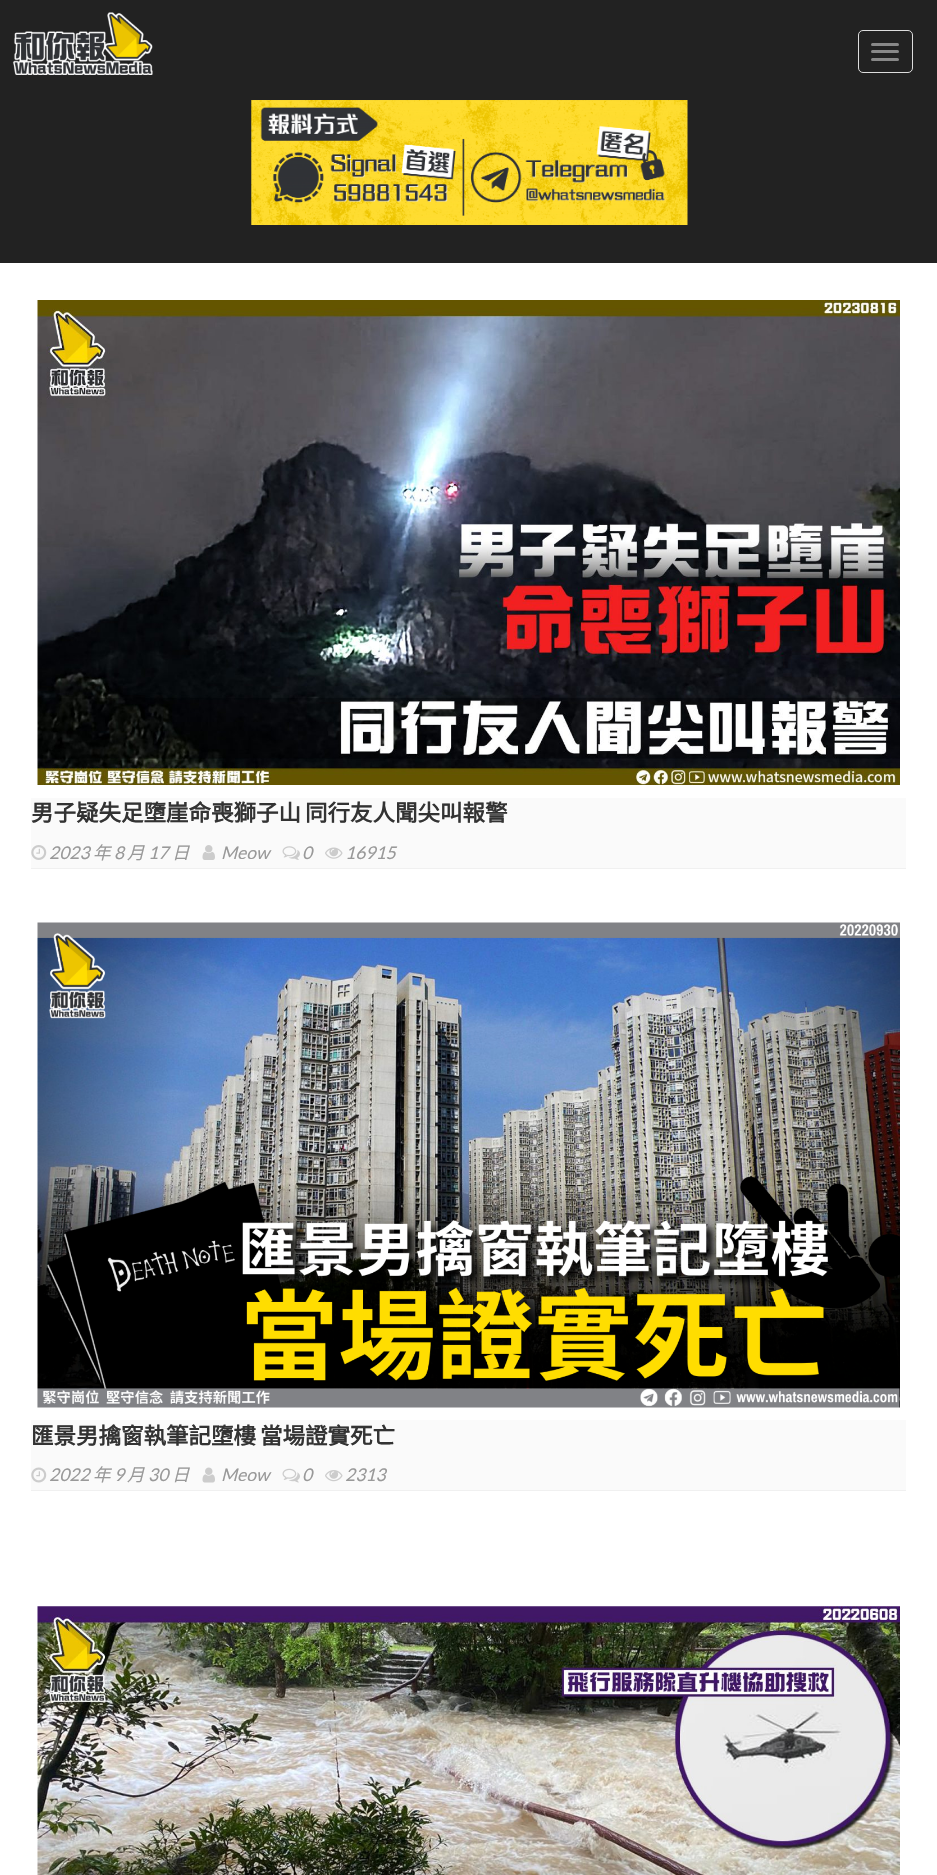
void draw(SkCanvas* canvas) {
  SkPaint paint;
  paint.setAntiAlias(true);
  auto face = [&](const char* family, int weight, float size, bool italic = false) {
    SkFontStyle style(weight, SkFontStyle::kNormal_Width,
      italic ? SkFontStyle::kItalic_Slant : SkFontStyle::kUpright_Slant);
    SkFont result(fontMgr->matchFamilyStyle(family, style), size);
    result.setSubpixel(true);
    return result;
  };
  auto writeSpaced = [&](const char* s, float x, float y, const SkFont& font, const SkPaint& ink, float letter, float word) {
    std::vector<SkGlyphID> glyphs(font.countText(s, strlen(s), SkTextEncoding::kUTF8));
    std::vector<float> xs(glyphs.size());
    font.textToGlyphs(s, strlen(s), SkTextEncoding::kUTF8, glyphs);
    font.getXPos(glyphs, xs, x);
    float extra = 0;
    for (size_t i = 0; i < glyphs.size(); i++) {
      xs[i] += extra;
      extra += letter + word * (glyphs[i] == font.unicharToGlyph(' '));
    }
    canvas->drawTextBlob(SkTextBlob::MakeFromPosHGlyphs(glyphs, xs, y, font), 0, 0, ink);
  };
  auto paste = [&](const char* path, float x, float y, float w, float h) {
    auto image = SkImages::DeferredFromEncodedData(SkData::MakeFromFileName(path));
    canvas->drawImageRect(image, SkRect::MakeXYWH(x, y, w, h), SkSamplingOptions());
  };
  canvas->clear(0xffffffff);
  paint.setColor(0xff222222);
  canvas->drawRect(SkRect::MakeXYWH(0, 0, 937, 263), paint);
  paste("img/1.png", 12, 12, 141, 63);
  paint.setStroke(true);
  paint.setStrokeWidth(1);
  paint.setColor(0xffdddddd);
  canvas->drawRoundRect(SkRect::MakeXYWH(858.5f, 30.5f, 54, 42), 4.5f, 4.5f, paint);
  paint.setStroke(false);
  paint.setColor(0xff888888);
  canvas->drawRoundRect(SkRect::MakeXYWH(871, 43, 28, 3), 1.5f, 1.5f, paint);
  canvas->drawRoundRect(SkRect::MakeXYWH(871, 50, 28, 3), 1.5f, 1.5f, paint);
  canvas->drawRoundRect(SkRect::MakeXYWH(871, 58, 28, 3), 1.5f, 1.5f, paint);
  paste("img/2.png", 251, 100, 437, 125);
  paste("img/3.png", 37, 300, 863, 485);
  paint.setColor(0xfffafafa);
  canvas->drawRect(SkRect::MakeXYWH(31, 798, 875, 70), paint);
  paint.setColor(0xfff0f0f0);
  canvas->drawRect(SkRect::MakeXYWH(31, 868, 875, 1), paint);
  paste("img/4.png", 31, 845, 16, 15);
  paste("img/5.png", 202, 845, 13, 15);
  paste("img/6.png", 282, 846, 18, 14);
  paste("img/7.png", 325, 847, 18, 12);
  paste("img/8.png", 37, 922, 863, 486);
  paint.setColor(0xfffafafa);
  canvas->drawRect(SkRect::MakeXYWH(31, 1420, 875, 70), paint);
  paint.setColor(0xfff0f0f0);
  canvas->drawRect(SkRect::MakeXYWH(31, 1490, 875, 1), paint);
  paste("img/9.png", 31, 1467, 16, 16);
  paste("img/10.png", 202, 1467, 13, 16);
  paste("img/11.png", 282, 1468, 18, 15);
  paste("img/12.png", 325, 1470, 18, 12);
  paste("img/13.png", 37, 1606, 863, 269);
  auto f0 = face("Noto Sans CJK TC", 700, 22.5f);
  paint.setColor(0xff333333);
  writeSpaced("男子疑失足墮崖命喪獅子山 同行友人聞尖叫報警", 31, 821, f0, paint, 0, -1);
  auto f1 = face("Lato", 400, 17.5f, true);
  paint.setColor(0xff999999);
  canvas->drawString("2023", 49, 859, f1, paint);
  auto f2 = face("Noto Sans CJK TC", 400, 17.5f, true);
  canvas->drawString("年", 93, 859, f2, paint);
  canvas->drawString("8", 114, 859, f1, paint);
  canvas->drawString("月", 127, 859, f2, paint);
  canvas->drawString("17", 148, 859, f1, paint);
  canvas->drawString("日", 172, 859, f2, paint);
  {
    const struct { const char* s; float x, y; } items[] = {
      {"Meow", 221, 859},
      {"0", 302, 859},
      {"16915", 345, 859},
    };
    for (auto [s, x, y] : items) {
      canvas->drawString(s, x, y, f1, paint);
    }
  }
  paint.setColor(0xff333333);
  writeSpaced("匯景男擒窗執筆記墮樓 當場證實死亡", 31, 1444, f0, paint, 0, -1);
  paint.setColor(0xff999999);
  canvas->drawString("2022", 49, 1481, f1, paint);
  canvas->drawString("年", 93, 1481, f2, paint);
  canvas->drawString("9", 114, 1481, f1, paint);
  canvas->drawString("月", 127, 1481, f2, paint);
  canvas->drawString("30", 148, 1481, f1, paint);
  canvas->drawString("日", 172, 1481, f2, paint);
  {
    const struct { const char* s; float x, y; } items[] = {
      {"Meow", 221, 1481},
      {"0", 302, 1481},
      {"2313", 345, 1481},
    };
    for (auto [s, x, y] : items) {
      canvas->drawString(s, x, y, f1, paint);
    }
  }
}
